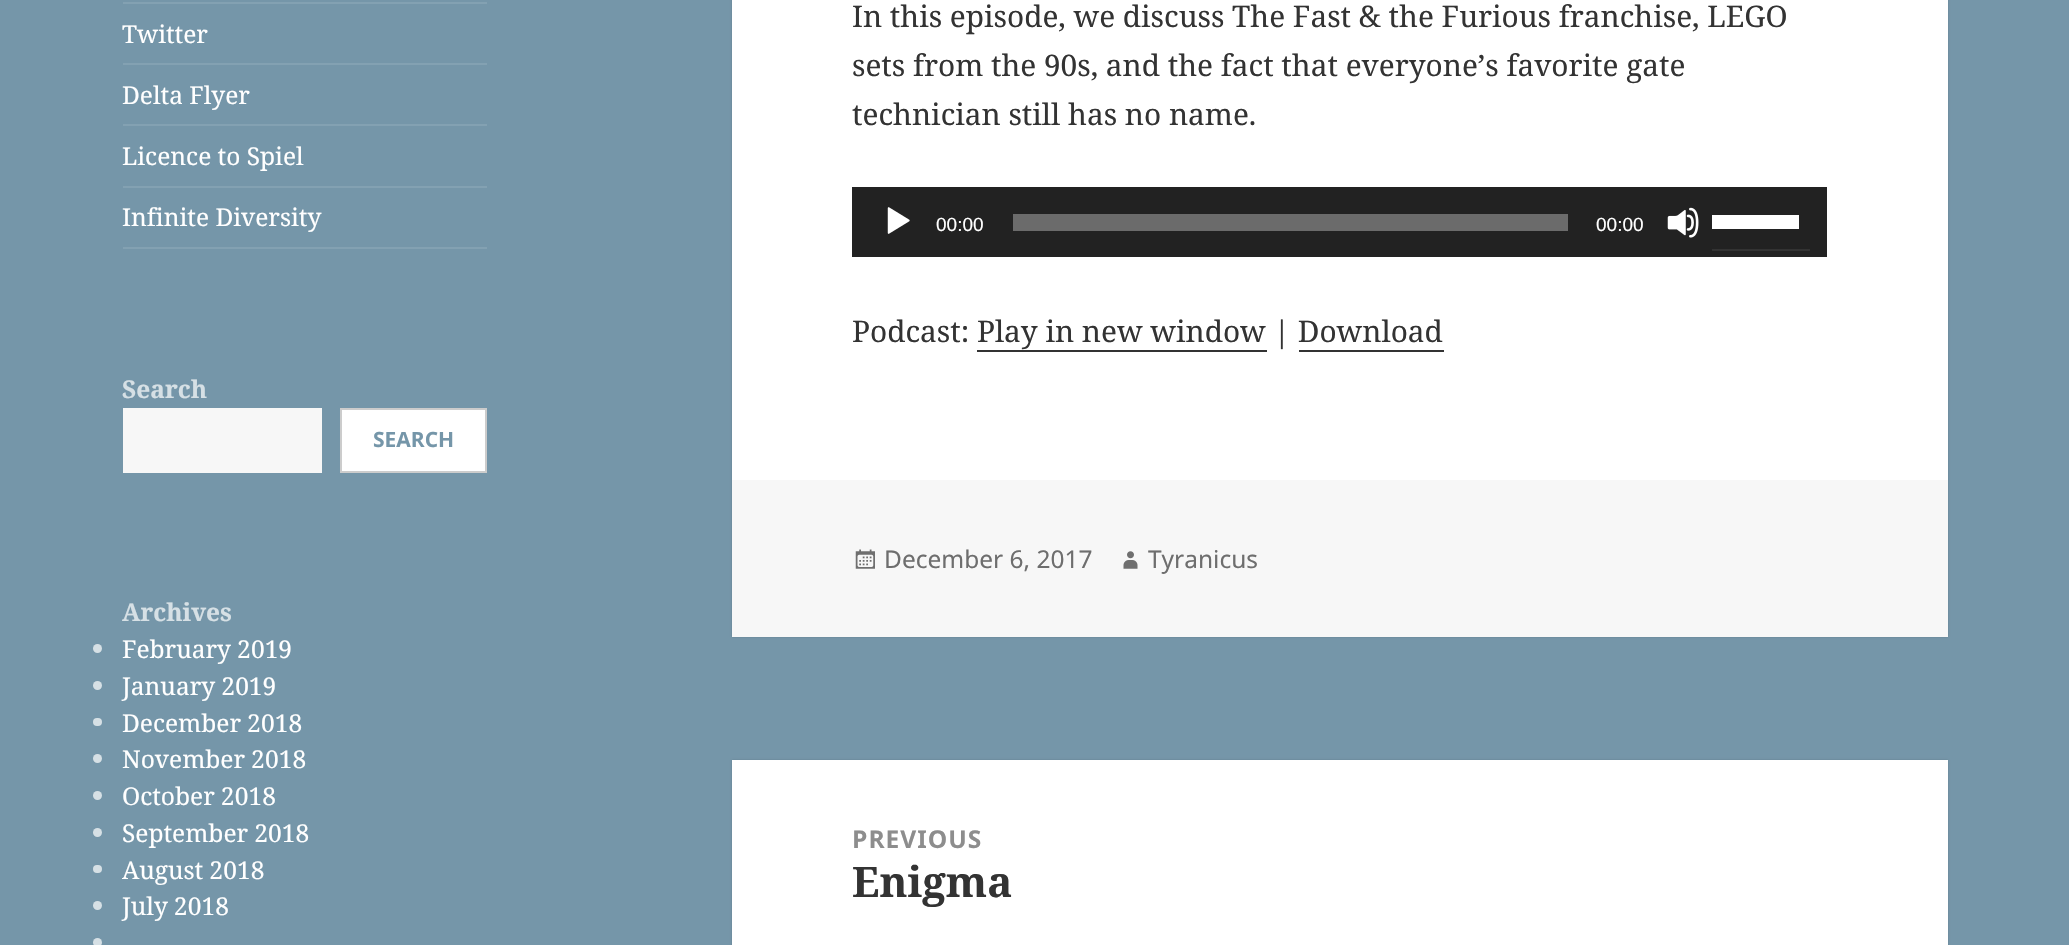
void draw(SkCanvas* canvas) {
  SkPaint paint;
  paint.setAntiAlias(true);
  auto face = [&](const char* family, int weight, float size, bool italic = false) {
    SkFontStyle style(weight, SkFontStyle::kNormal_Width,
      italic ? SkFontStyle::kItalic_Slant : SkFontStyle::kUpright_Slant);
    SkFont result(fontMgr->matchFamilyStyle(family, style), size);
    result.setSubpixel(true);
    return result;
  };
  auto writeSpaced = [&](const char* s, float x, float y, const SkFont& font, const SkPaint& ink, float letter, float word) {
    std::vector<SkGlyphID> glyphs(font.countText(s, strlen(s), SkTextEncoding::kUTF8));
    std::vector<float> xs(glyphs.size());
    font.textToGlyphs(s, strlen(s), SkTextEncoding::kUTF8, glyphs);
    font.getXPos(glyphs, xs, x);
    float extra = 0;
    for (size_t i = 0; i < glyphs.size(); i++) {
      xs[i] += extra;
      extra += letter + word * (glyphs[i] == font.unicharToGlyph(' '));
    }
    canvas->drawTextBlob(SkTextBlob::MakeFromPosHGlyphs(glyphs, xs, y, font), 0, 0, ink);
  };
  auto paste = [&](const char* path, float x, float y, float w, float h) {
    auto image = SkImages::DeferredFromEncodedData(SkData::MakeFromFileName(path));
    canvas->drawImageRect(image, SkRect::MakeXYWH(x, y, w, h), SkSamplingOptions());
  };
  canvas->clear(0xff7596a9);
  {
    const struct { float x, y, w, h; SkColor color; } items[] = {
      {123, 247, 364, 2, 0xff83a1b2},
      {123, 2, 364, 2, 0xff83a1b2},
      {123, 63, 364, 2, 0xff83a1b2},
      {123, 124, 364, 2, 0xff83a1b2},
      {123, 186, 364, 2, 0xff83a1b2},
      {123, 408, 199, 65, 0xfff7f7f7},
    };
    for (auto [x, y, w, h, color] : items) {
      paint.setColor(color);
      canvas->drawRect(SkRect::MakeXYWH(x, y, w, h), paint);
    }
  }
  paint.setColor(0xffffffff);
  canvas->drawRect(SkRect::MakeXYWH(341, 409, 145, 63), paint);
  paint.setStroke(true);
  paint.setStrokeWidth(2);
  paint.setColor(0xffcccccc);
  canvas->drawRect(SkRect::MakeXYWH(341, 409, 145, 63), paint);
  paint.setStroke(false);
  paint.setColor(0xffd6e0e5);
  canvas->drawCircle(97.5f, 648.5f, 4.5f, paint);
  canvas->drawCircle(97.5f, 685.5f, 4.5f, paint);
  canvas->drawRoundRect(SkRect::MakeXYWH(93, 718, 9, 8), 4, 4, paint);
  canvas->drawCircle(97.5f, 758.5f, 4.5f, paint);
  canvas->drawCircle(97.5f, 795.5f, 4.5f, paint);
  canvas->drawCircle(97.5f, 832.5f, 4.5f, paint);
  canvas->drawRoundRect(SkRect::MakeXYWH(93, 865, 9, 8), 4, 4, paint);
  canvas->drawCircle(97.5f, 905.5f, 4.5f, paint);
  canvas->drawCircle(97.5f, 942.5f, 4.5f, paint);
  paint.setColor(0x26000000);
  paint.setMaskFilter(SkMaskFilter::MakeBlur(kNormal_SkBlurStyle, 1));
  canvas->drawRect(SkRect::MakeXYWH(732, -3, 1216, 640), paint);
  paint.setMaskFilter(nullptr);
  paint.setColor(0xffffffff);
  canvas->drawRect(SkRect::MakeXYWH(732, 0, 1216, 480), paint);
  paint.setColor(0xff222222);
  canvas->drawRect(SkRect::MakeXYWH(852, 187, 975, 70), paint);
  paste("img/1.png", 887, 207, 23, 27);
  paint.setColor(0xff6b6b6b);
  canvas->drawRect(SkRect::MakeXYWH(1013, 214, 555, 17), paint);
  paste("img/2.png", 1667, 207, 32, 31);
  {
    const struct { float x, y, w, h; SkColor color; } items[] = {
      {1712, 249, 98, 2, 0xff333333},
      {1712, 215, 87, 14, 0xffffffff},
      {977, 350, 290, 2, 0xff333333},
      {1299, 350, 145, 2, 0xff333333},
      {732, 480, 1216, 157, 0xfff7f7f7},
    };
    for (auto [x, y, w, h, color] : items) {
      paint.setColor(color);
      canvas->drawRect(SkRect::MakeXYWH(x, y, w, h), paint);
    }
  }
  paste("img/3.png", 855, 549, 20, 20);
  paste("img/4.png", 1123, 551, 15, 18);
  paint.setColor(0x26000000);
  paint.setMaskFilter(SkMaskFilter::MakeBlur(kNormal_SkBlurStyle, 1));
  canvas->drawRect(SkRect::MakeXYWH(732, 760, 1216, 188), paint);
  paint.setMaskFilter(nullptr);
  paint.setColor(0xffffffff);
  canvas->drawRect(SkRect::MakeXYWH(732, 760, 1216, 185), paint);
  auto f0 = face("Noto Serif", 400, 24.5f);
  {
    const struct { const char* s; float x, y; } items[] = {
      {"Twitter", 122, 43},
      {"Delta Flyer", 122, 104},
      {"Licence to Spiel", 122, 165},
      {"Infinite Diversity", 122, 226},
    };
    for (auto [s, x, y] : items) {
      canvas->drawString(s, x, y, f0, paint);
    }
  }
  auto f1 = face("Noto Serif", 700, 24.5f);
  paint.setColor(0xffd6e0e5);
  canvas->drawString("Search", 122, 398, f1, paint);
  auto f2 = face("Noto Sans", 700, 21);
  paint.setColor(0xff7596a9);
  canvas->drawString("SEARCH", 373, 447, f2, paint);
  paint.setColor(0xffd6e0e5);
  canvas->drawString("Archives", 122, 621, f1, paint);
  paint.setColor(0xffffffff);
  {
    const struct { const char* s; float x, y; } items[] = {
      {"February 2019", 122, 658},
      {"January 2019", 122, 695},
      {"December 2018", 122, 732},
      {"November 2018", 122, 768},
      {"October 2018", 122, 805},
      {"September 2018", 122, 842},
      {"August 2018", 122, 879},
      {"July 2018", 122, 915},
    };
    for (auto [s, x, y] : items) {
      canvas->drawString(s, x, y, f0, paint);
    }
  }
  auto f3 = face("Noto Serif", 400, 29.75f);
  paint.setColor(0xff333333);
  {
    const struct { const char* s; float x, y; } items[] = {
      {"In this episode, we discuss The Fast & the Furious franchise, LEGO", 852, 27},
      {"sets from the 90s, and the fact that everyone’s favorite gate", 852, 76},
      {"technician still has no name.", 852, 125},
    };
    for (auto [s, x, y] : items) {
      canvas->drawString(s, x, y, f3, paint);
    }
  }
  auto f4 = face("Liberation Sans", 400, 19);
  paint.setColor(0xffffffff);
  canvas->drawString("00:00", 936, 231, f4, paint);
  canvas->drawString("00:00", 1596, 231, f4, paint);
  paint.setColor(0xff333333);
  canvas->drawString("Podcast: Play in new window | Download", 852, 342, f3, paint);
  auto f5 = face("Noto Sans", 400, 24.5f);
  paint.setColor(0xff6e6e6e);
  canvas->drawString("December 6, 2017", 884, 568, f5, paint);
  canvas->drawString("Tyranicus", 1148, 568, f5, paint);
  auto f6 = face("Noto Sans", 700, 24.5f);
  paint.setColor(0xff8d8d8d);
  writeSpaced("PREVIOUS", 852, 848, f6, paint, 1, 0);
  auto f7 = face("Noto Serif", 700, 42);
  paint.setColor(0xff333333);
  canvas->drawString("Enigma", 852, 897, f7, paint);
}
